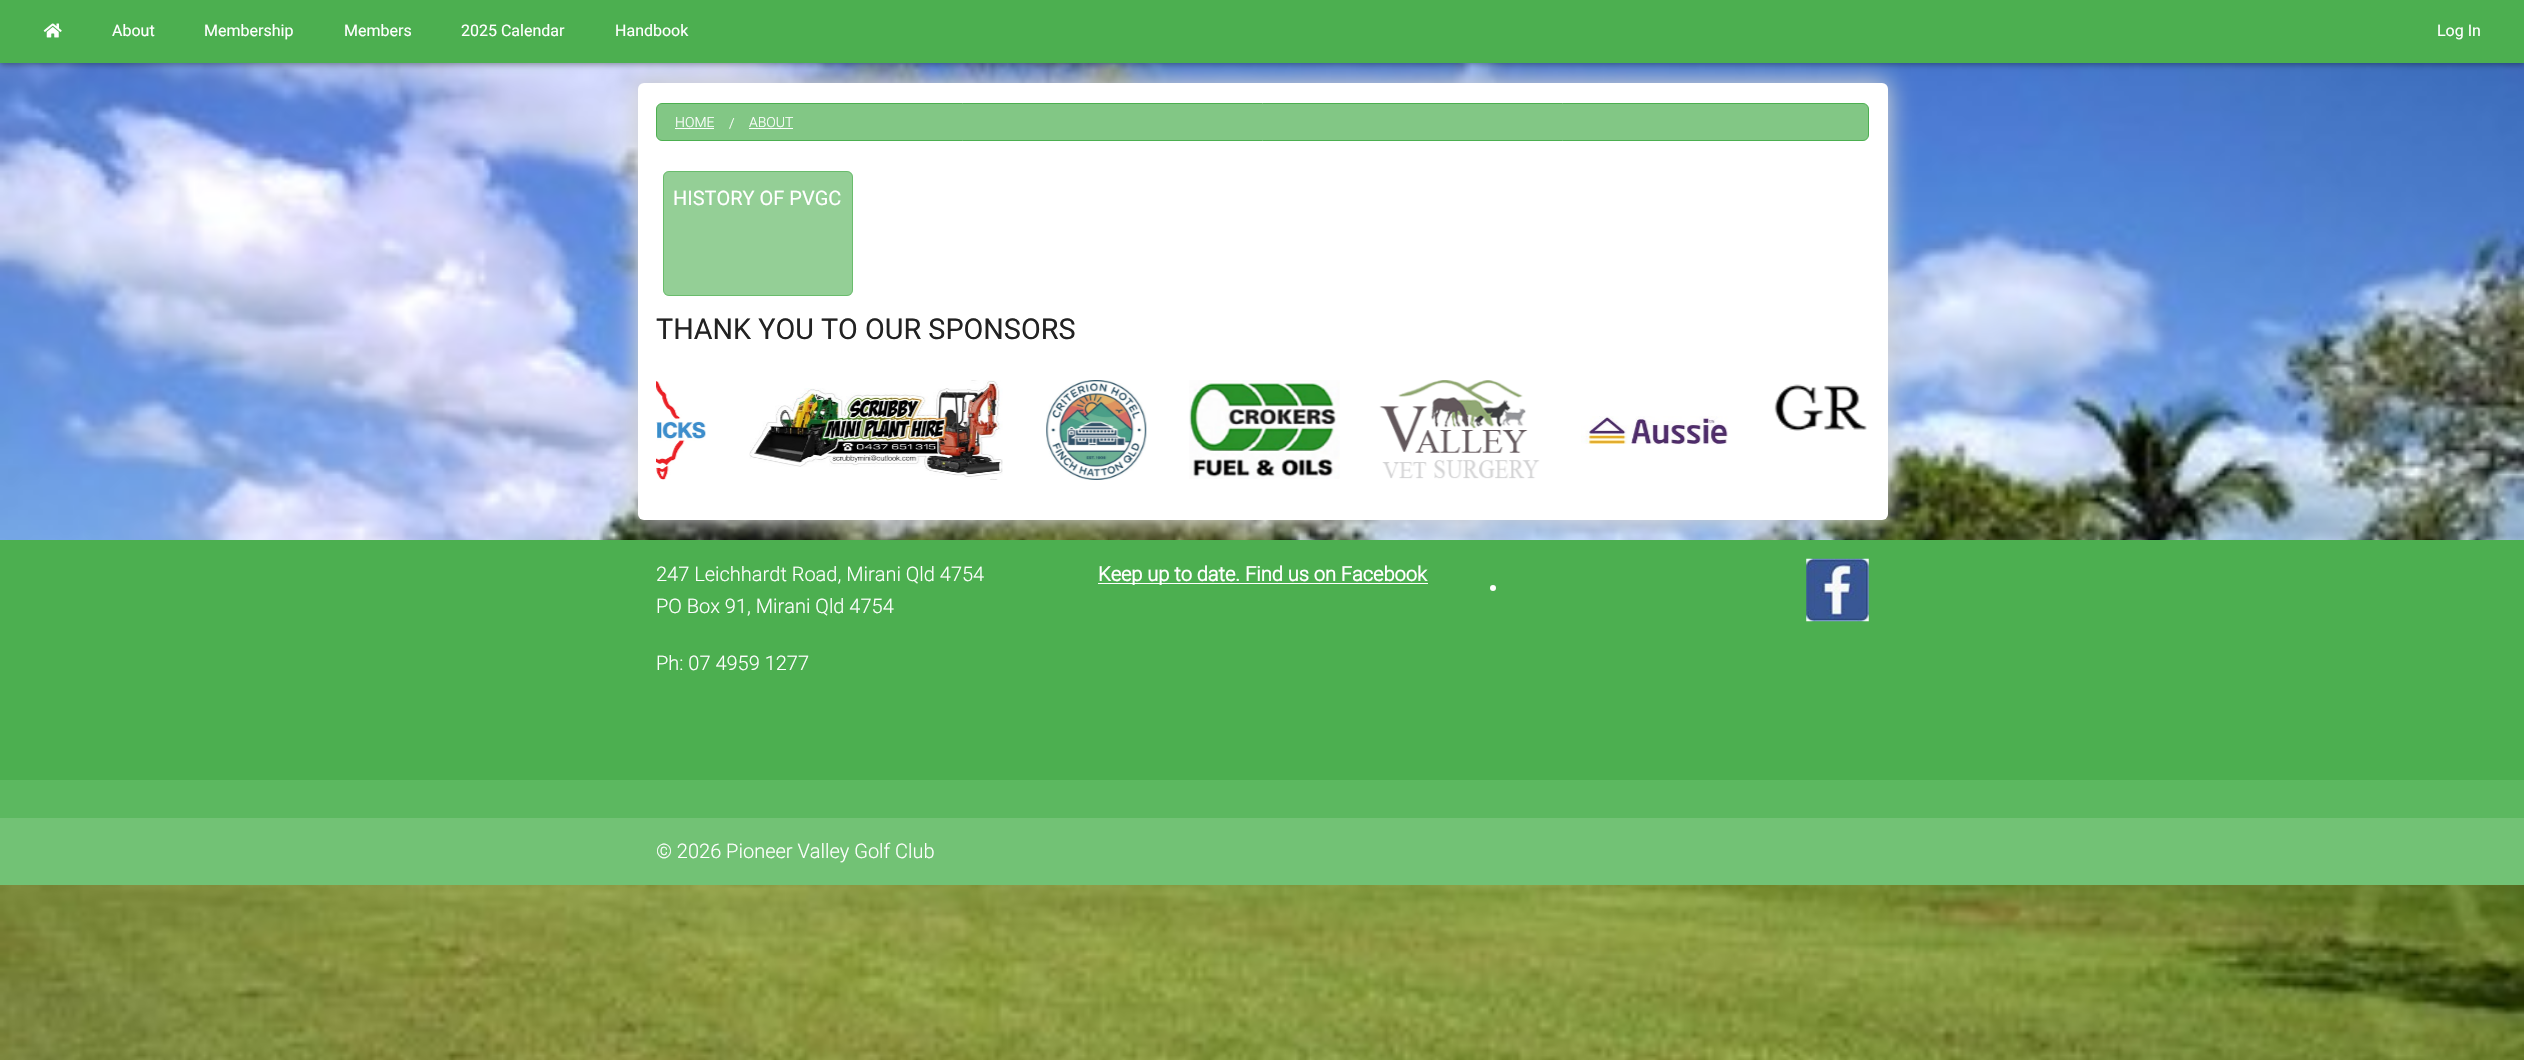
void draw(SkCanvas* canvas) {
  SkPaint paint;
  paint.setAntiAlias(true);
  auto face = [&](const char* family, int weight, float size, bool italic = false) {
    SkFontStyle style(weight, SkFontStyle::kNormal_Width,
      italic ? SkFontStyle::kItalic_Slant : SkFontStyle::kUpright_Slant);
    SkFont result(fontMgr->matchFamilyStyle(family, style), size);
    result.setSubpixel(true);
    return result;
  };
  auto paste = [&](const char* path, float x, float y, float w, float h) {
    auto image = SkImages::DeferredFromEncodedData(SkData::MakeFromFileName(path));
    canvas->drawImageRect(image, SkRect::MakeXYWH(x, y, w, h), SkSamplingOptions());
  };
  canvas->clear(0xffffffff);
  paste("img/1.png", 0, 63, 2524, 997);
  paint.setColor(0x59000000);
  paint.setMaskFilter(SkMaskFilter::MakeBlur(kNormal_SkBlurStyle, 3));
  canvas->drawRect(SkRect::MakeXYWH(0, 3, 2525, 62), paint);
  paint.setMaskFilter(nullptr);
  paint.setColor(0xffd3d3d3);
  paint.setMaskFilter(SkMaskFilter::MakeBlur(kNormal_SkBlurStyle, 12.5f));
  canvas->drawRoundRect(SkRect::MakeXYWH(635, 80, 1255, 443), 9, 9, paint);
  paint.setMaskFilter(nullptr);
  paint.setColor(0xff4caf50);
  canvas->drawRect(SkRect::MakeXYWH(0, 0, 2524, 63), paint);
  paste("img/2.png", 43, 23, 19, 15);
  paint.setColor(0xffffffff);
  canvas->drawRoundRect(SkRect::MakeXYWH(638, 83, 1250, 437), 6, 6, paint);
  paint.setColor(0xff82c785);
  canvas->drawRoundRect(SkRect::MakeXYWH(656.5f, 103.5f, 1212, 37), 5.5f, 5.5f, paint);
  paint.setStroke(true);
  paint.setStrokeWidth(1);
  paint.setColor(0xff4caf50);
  canvas->drawRoundRect(SkRect::MakeXYWH(656.5f, 103.5f, 1212, 37), 5.5f, 5.5f, paint);
  paint.setStroke(false);
  paint.setColor(0xffffffff);
  canvas->drawRect(SkRect::MakeXYWH(675, 128, 39, 1), paint);
  canvas->drawRect(SkRect::MakeXYWH(749, 128, 44, 1), paint);
  paint.setColor(0xff94cf96);
  canvas->drawRoundRect(SkRect::MakeXYWH(663, 171, 190, 125), 6, 6, paint);
  paint.setStroke(true);
  paint.setColor(0x994caf50);
  canvas->drawRoundRect(SkRect::MakeXYWH(663.5f, 171.5f, 189, 124), 5.5f, 5.5f, paint);
  paste("img/3.png", 656, 381, 50, 99);
  paste("img/4.png", 749, 380, 254, 100);
  paste("img/5.png", 1046, 380, 101, 100);
  paste("img/6.png", 1189, 380, 151, 99);
  paste("img/7.png", 1379, 380, 161, 99);
  paste("img/8.png", 1581, 416, 147, 29);
  paste("img/9.png", 1774, 384, 93, 47);
  paint.setStroke(false);
  paint.setColor(0xff4caf50);
  canvas->drawRect(SkRect::MakeXYWH(0, 540, 2524, 240), paint);
  paint.setColor(0xffffffff);
  canvas->drawRect(SkRect::MakeXYWH(1098, 583, 330, 1), paint);
  canvas->drawCircle(1493, 588, 3, paint);
  paste("img/10.png", 1806, 558, 63, 64);
  paint.setColor(0xff5cb860);
  canvas->drawRect(SkRect::MakeXYWH(0, 780, 2524, 38), paint);
  paint.setColor(0xff72c275);
  canvas->drawRect(SkRect::MakeXYWH(0, 818, 2524, 67), paint);
  auto f0 = face("Heebo", 400, 16);
  paint.setColor(0xffffffff);
  {
    const struct { const char* s; float x, y; } items[] = {
      {"About", 112, 36},
      {"Membership", 204, 36},
      {"Members", 344, 36},
      {"2025 Calendar", 461, 36},
      {"Handbook", 615, 36},
      {"Log In", 2437, 36},
    };
    for (auto [s, x, y] : items) {
      canvas->drawString(s, x, y, f0, paint);
    }
  }
  auto f1 = face("Roboto", 300, 14);
  {
    const struct { const char* s; float x, y; } items[] = {
      {"HOME", 675, 127},
      {"/", 729, 128},
      {"ABOUT", 749, 127},
    };
    for (auto [s, x, y] : items) {
      canvas->drawString(s, x, y, f1, paint);
    }
  }
  auto f2 = face("Heebo", 400, 20);
  canvas->drawString("HISTORY OF PVGC", 673, 205, f2, paint);
  auto f3 = face("Heebo", 400, 28.75f);
  paint.setColor(0xff222222);
  canvas->drawString("THANK YOU TO OUR SPONSORS", 656, 339, f3, paint);
  auto f4 = face("Roboto", 300, 20);
  paint.setColor(0xffffffff);
  {
    const struct { const char* s; float x, y; } items[] = {
      {"247 Leichhardt Road, Mirani Qld 4754", 656, 581},
      {"PO Box 91, Mirani Qld 4754", 656, 613},
      {"Ph: 07 4959 1277", 656, 670},
    };
    for (auto [s, x, y] : items) {
      canvas->drawString(s, x, y, f4, paint);
    }
  }
  auto f5 = face("Roboto", 700, 20);
  canvas->drawString("Keep up to date. Find us on Facebook", 1098, 581, f5, paint);
  canvas->drawString("© 2026 Pioneer Valley Golf Club", 656, 858, f4, paint);
}
